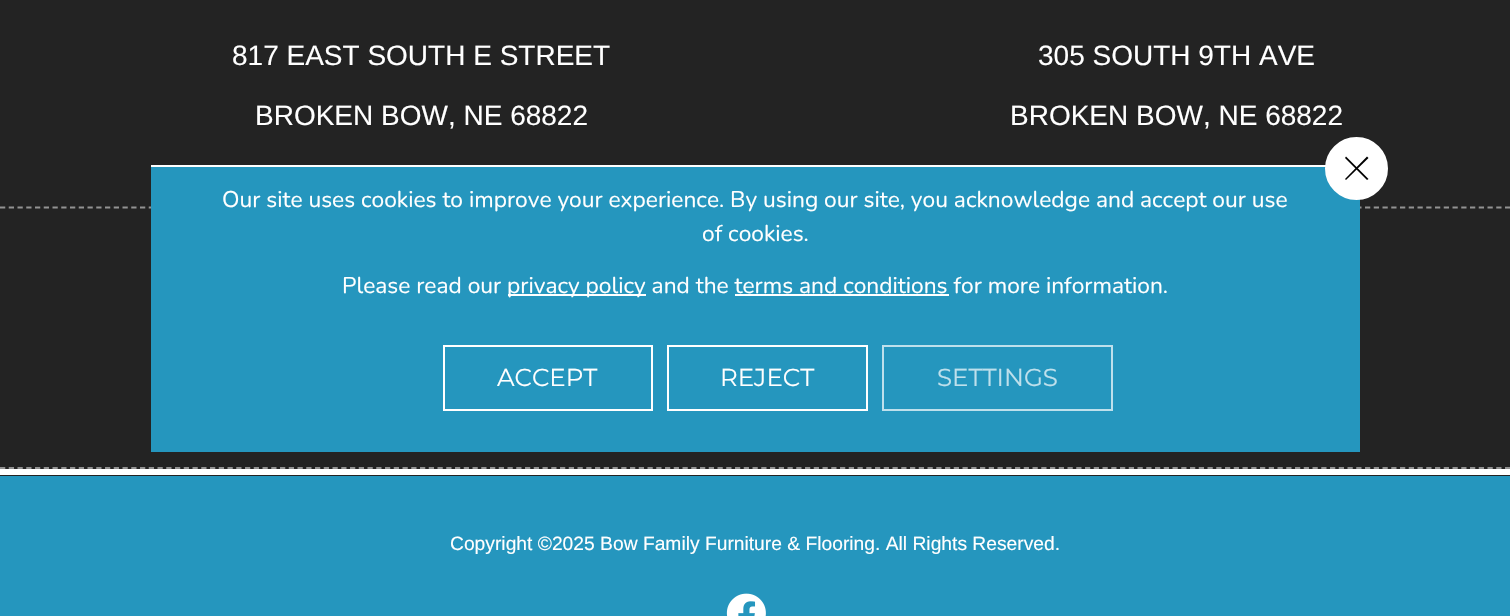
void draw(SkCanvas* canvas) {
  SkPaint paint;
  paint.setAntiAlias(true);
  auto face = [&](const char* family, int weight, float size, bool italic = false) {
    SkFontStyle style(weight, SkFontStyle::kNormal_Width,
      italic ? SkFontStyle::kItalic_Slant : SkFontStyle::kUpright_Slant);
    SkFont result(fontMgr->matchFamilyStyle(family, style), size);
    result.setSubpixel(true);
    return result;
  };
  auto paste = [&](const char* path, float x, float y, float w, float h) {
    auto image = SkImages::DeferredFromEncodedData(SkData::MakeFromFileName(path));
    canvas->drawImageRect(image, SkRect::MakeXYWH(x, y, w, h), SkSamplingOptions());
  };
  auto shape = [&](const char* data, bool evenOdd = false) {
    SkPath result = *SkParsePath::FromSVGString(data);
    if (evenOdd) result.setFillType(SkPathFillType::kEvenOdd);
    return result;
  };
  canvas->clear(0xff232323);
  paint.setStroke(true);
  paint.setStrokeWidth(1.8f);
  paint.setColor(0xff939393);
  paint.setPathEffect(SkDashPathEffect::Make({{5.25f, 3.5f}}, 0));
  canvas->drawPath(shape("M0 207.5H1510"), paint);
  paint.setPathEffect(nullptr);
  paint.setPathEffect(SkDashPathEffect::Make({{5.25f, 3.5f}}, 0));
  canvas->drawPath(shape("M0 468H1510"), paint);
  paint.setPathEffect(nullptr);
  paint.setStroke(false);
  paint.setColor(0xffffffff);
  canvas->drawRect(SkRect::MakeXYWH(0, 469, 1510, 6), paint);
  paint.setColor(0xff2596be);
  canvas->drawRect(SkRect::MakeXYWH(0, 476, 1510, 140), paint);
  paste("img/1.png", 726, 593, 40, 23);
  {
    const struct { float x, y, w, h; SkColor color; } items[] = {
      {151, 167, 1209, 285, 0xff2596be},
      {151, 165, 1175, 2, 0xffffffff},
      {508, 294, 138, 2, 0xffffffff},
      {735, 294, 214, 2, 0xffffffff},
    };
    for (auto [x, y, w, h, color] : items) {
      paint.setColor(color);
      canvas->drawRect(SkRect::MakeXYWH(x, y, w, h), paint);
    }
  }
  canvas->drawCircle(1356.5f, 168.5f, 30.5f, paint);
  paint.setStroke(true);
  paint.setStrokeWidth(2);
  canvas->drawCircle(1356.5f, 168.5f, 30.5f, paint);
  paint.setStroke(false);
  paint.setColor(0xff000000);
  canvas->drawPath(shape("M1367 156.5L1368.5 158L1346 180L1345 179Z"), paint);
  canvas->drawPath(shape("M1345 158L1346 156.5L1368.5 179L1367 180Z"), paint);
  paint.setStroke(true);
  paint.setColor(0xffffffff);
  canvas->drawRect(SkRect::MakeXYWH(444, 346, 208, 64), paint);
  canvas->drawRect(SkRect::MakeXYWH(668, 346, 199, 64), paint);
  paint.setColor(0xffbee0ec);
  canvas->drawRect(SkRect::MakeXYWH(883, 346, 229, 64), paint);
  auto f0 = face("Liberation Sans", 400, 28);
  paint.setStroke(false);
  paint.setColor(0xffffffff);
  {
    const struct { const char* s; float x, y; } items[] = {
      {"817 EAST SOUTH E STREET", 232, 65},
      {"BROKEN BOW, NE 68822", 255, 125},
      {"305 SOUTH 9TH AVE", 1038, 65},
      {"BROKEN BOW, NE 68822", 1010, 125},
    };
    for (auto [s, x, y] : items) {
      canvas->drawString(s, x, y, f0, paint);
    }
  }
  auto f1 = face("Liberation Sans", 400, 19.25f);
  canvas->drawString("Copyright ©2025 Bow Family Furniture & Flooring. All Rights Reserved.", 450, 550, f1, paint);
  auto f2 = face("Nunito", 400, 22.75f);
  {
    const struct { const char* s; float x, y; } items[] = {
      {"Our site uses cookies to improve your experience. By using our site, you acknowledge and accept our use", 222, 207},
      {"of cookies.", 702, 241},
      {"Please read our", 342, 293},
      {"privacy policy and the terms and conditions for more information.", 507, 293},
    };
    for (auto [s, x, y] : items) {
      canvas->drawString(s, x, y, f2, paint);
    }
  }
  auto f3 = face("Montserrat", 100, 24.5f);
  canvas->drawString("ACCEPT", 497, 386, f3, paint);
  canvas->drawString("REJECT", 720, 386, f3, paint);
  paint.setColor(0xffbee0ec);
  canvas->drawString("SETTINGS", 937, 386, f3, paint);
}
